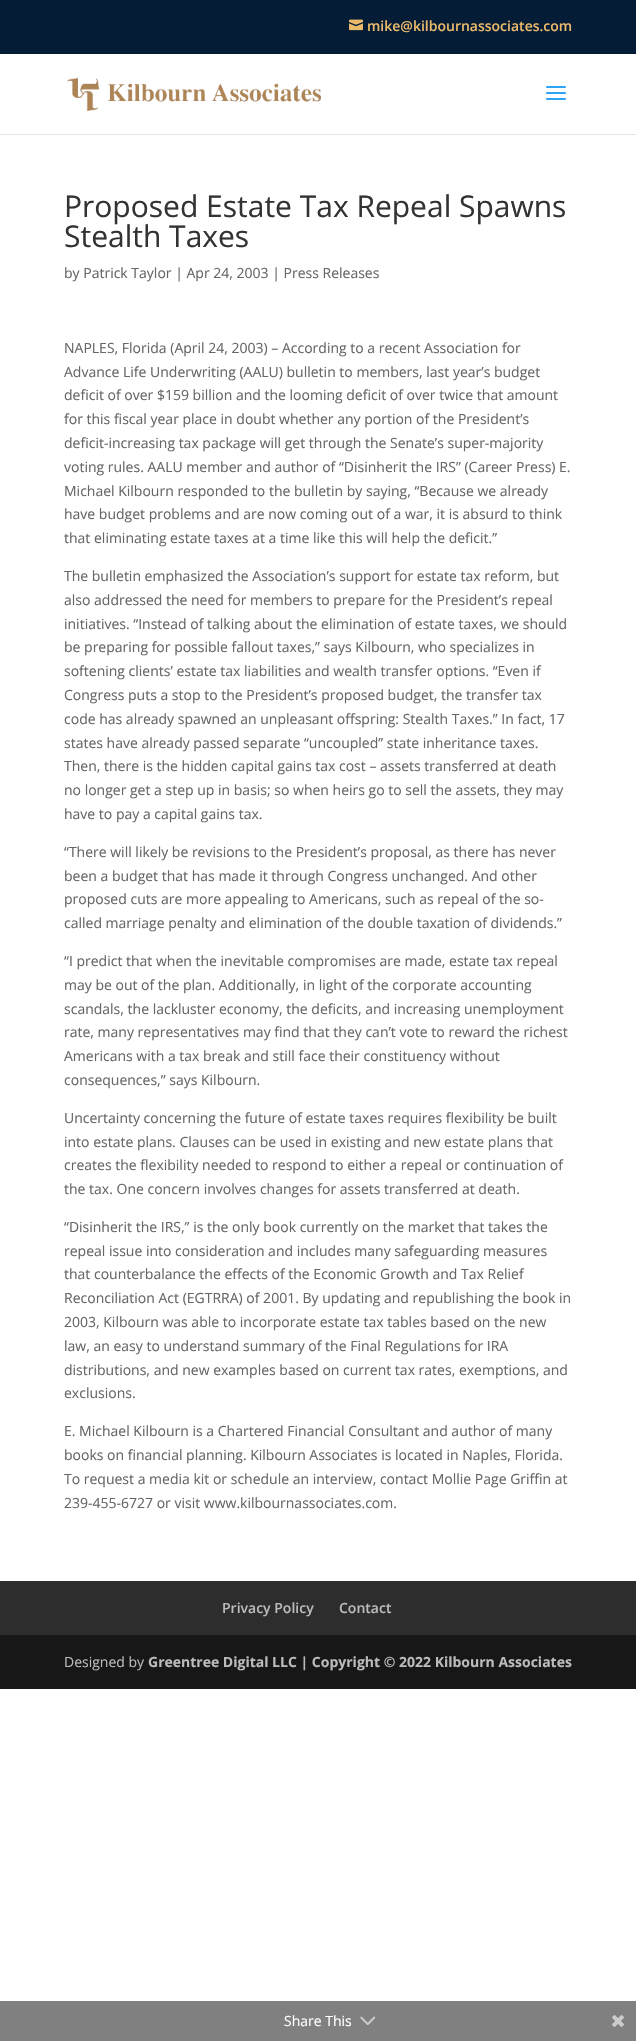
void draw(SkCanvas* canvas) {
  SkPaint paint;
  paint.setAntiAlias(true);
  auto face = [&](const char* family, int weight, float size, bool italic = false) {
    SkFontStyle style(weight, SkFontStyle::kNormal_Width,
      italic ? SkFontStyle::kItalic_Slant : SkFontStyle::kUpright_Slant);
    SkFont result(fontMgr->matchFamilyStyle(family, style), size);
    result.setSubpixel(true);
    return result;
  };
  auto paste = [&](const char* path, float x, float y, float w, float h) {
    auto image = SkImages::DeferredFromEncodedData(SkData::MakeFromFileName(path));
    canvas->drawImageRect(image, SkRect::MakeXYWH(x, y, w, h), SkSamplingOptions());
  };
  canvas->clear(0xffffffff);
  paint.setColor(0xff051c37);
  canvas->drawRect(SkRect::MakeXYWH(0, 0, 636, 54), paint);
  paste("img/1.png", 349, 19, 14, 12);
  paint.setColor(0xffe6e6e6);
  canvas->drawRect(SkRect::MakeXYWH(0, 134, 636, 1), paint);
  paste("img/2.png", 67, 78, 254, 33);
  paste("img/3.png", 546, 86, 20, 14);
  {
    const struct { float x, y, w, h; SkColor color; } items[] = {
      {0, 1581, 636, 54, 0xff2d2d2d},
      {0, 1635, 636, 54, 0xff171717},
      {0, 2001, 636, 40, 0xff808080},
    };
    for (auto [x, y, w, h, color] : items) {
      paint.setColor(color);
      canvas->drawRect(SkRect::MakeXYWH(x, y, w, h), paint);
    }
  }
  paste("img/4.png", 360, 2016, 16, 9);
  paste("img/5.png", 612, 2015, 12, 12);
  auto f0 = face("Open Sans", 600, 14);
  paint.setColor(0xffeaba6b);
  canvas->drawString("mike@kilbournassociates.com", 367, 31, f0, paint);
  auto f1 = face("Open Sans", 400, 30);
  paint.setColor(0xff333333);
  canvas->drawString("Proposed Estate Tax Repeal Spawns", 64, 217, f1, paint);
  canvas->drawString("Stealth Taxes", 64, 247, f1, paint);
  auto f2 = face("Open Sans", 400, 14);
  paint.setColor(0xff666666);
  {
    const struct { const char* s; float x, y; } items[] = {
      {"by Patrick Taylor | Apr 24, 2003 | Press Releases", 64, 278},
      {"NAPLES, Florida (April 24, 2003) – According to a recent Association for", 64, 353},
      {"Advance Life Underwriting (AALU) bulletin to members, last year’s budget", 64, 377},
      {"deficit of over $159 billion and the looming deficit of over twice that amount", 64, 400},
      {"for this fiscal year place in doubt whether any portion of the President’s", 64, 424},
      {"deficit-increasing tax package will get through the Senate’s super-majority", 64, 448},
      {"voting rules. AALU member and author of “Disinherit the IRS” (Career Press) E.", 64, 472},
      {"Michael Kilbourn responded to the bulletin by saying, “Because we already", 64, 496},
      {"have budget problems and are now coming out of a war, it is absurd to think", 64, 519},
      {"that eliminating estate taxes at a time like this will help the deficit.”", 64, 543},
      {"The bulletin emphasized the Association’s support for estate tax reform, but", 64, 581},
      {"also addressed the need for members to prepare for the President’s repeal", 64, 605},
      {"initiatives. “Instead of talking about the elimination of estate taxes, we should", 64, 629},
      {"be preparing for possible fallout taxes,” says Kilbourn, who specializes in", 64, 652},
      {"softening clients’ estate tax liabilities and wealth transfer options. “Even if", 64, 676},
      {"Congress puts a stop to the President’s proposed budget, the transfer tax", 64, 700},
      {"code has already spawned an unpleasant offspring: Stealth Taxes.” In fact, 17", 64, 724},
      {"states have already passed separate “uncoupled” state inheritance taxes.", 64, 748},
      {"Then, there is the hidden capital gains tax cost – assets transferred at death", 64, 771},
      {"no longer get a step up in basis; so when heirs go to sell the assets, they may", 64, 795},
      {"have to pay a capital gains tax.", 64, 819},
      {"“There will likely be revisions to the President’s proposal, as there has never", 64, 857},
      {"been a budget that has made it through Congress unchanged. And other", 64, 881},
      {"proposed cuts are more appealing to Americans, such as repeal of the so-", 64, 904},
      {"called marriage penalty and elimination of the double taxation of dividends.”", 64, 928},
      {"“I predict that when the inevitable compromises are made, estate tax repeal", 64, 966},
      {"may be out of the plan. Additionally, in light of the corporate accounting", 64, 990},
      {"scandals, the lackluster economy, the deficits, and increasing unemployment", 64, 1014},
      {"rate, many representatives may find that they can’t vote to reward the richest", 64, 1037},
      {"Americans with a tax break and still face their constituency without", 64, 1061},
      {"consequences,” says Kilbourn.", 64, 1085},
      {"Uncertainty concerning the future of estate taxes requires flexibility be built", 64, 1123},
      {"into estate plans. Clauses can be used in existing and new estate plans that", 64, 1147},
      {"creates the flexibility needed to respond to either a repeal or continuation of", 64, 1170},
      {"the tax. One concern involves changes for assets transferred at death.", 64, 1194},
      {"“Disinherit the IRS,” is the only book currently on the market that takes the", 64, 1232},
      {"repeal issue into consideration and includes many safeguarding measures", 64, 1256},
      {"that counterbalance the effects of the Economic Growth and Tax Relief", 64, 1279},
      {"Reconciliation Act (EGTRRA) of 2001. By updating and republishing the book in", 64, 1303},
      {"2003, Kilbourn was able to incorporate estate tax tables based on the new", 64, 1327},
      {"law, an easy to understand summary of the Final Regulations for IRA", 64, 1351},
      {"distributions, and new examples based on current tax rates, exemptions, and", 64, 1375},
      {"exclusions.", 64, 1398},
      {"E. Michael Kilbourn is a Chartered Financial Consultant and author of many", 64, 1436},
      {"books on financial planning. Kilbourn Associates is located in Naples, Florida.", 64, 1460},
      {"To request a media kit or schedule an interview, contact Mollie Page Griffin at", 64, 1484},
      {"239-455-6727 or visit www.kilbournassociates.com.", 64, 1508},
    };
    for (auto [s, x, y] : items) {
      canvas->drawString(s, x, y, f2, paint);
    }
  }
  paint.setColor(0xffbbbbbb);
  canvas->drawString("Privacy Policy", 222, 1613, f0, paint);
  canvas->drawString("Contact", 339, 1613, f0, paint);
  canvas->drawString("Designed by", 64, 1667, f2, paint);
  auto f3 = face("Open Sans", 700, 14);
  canvas->drawString("Greentree Digital LLC | Copyright © 2022 Kilbourn Associates", 148, 1667, f3, paint);
  paint.setColor(0xffffffff);
  canvas->drawString("Share This", 284, 2026, f2, paint);
}
